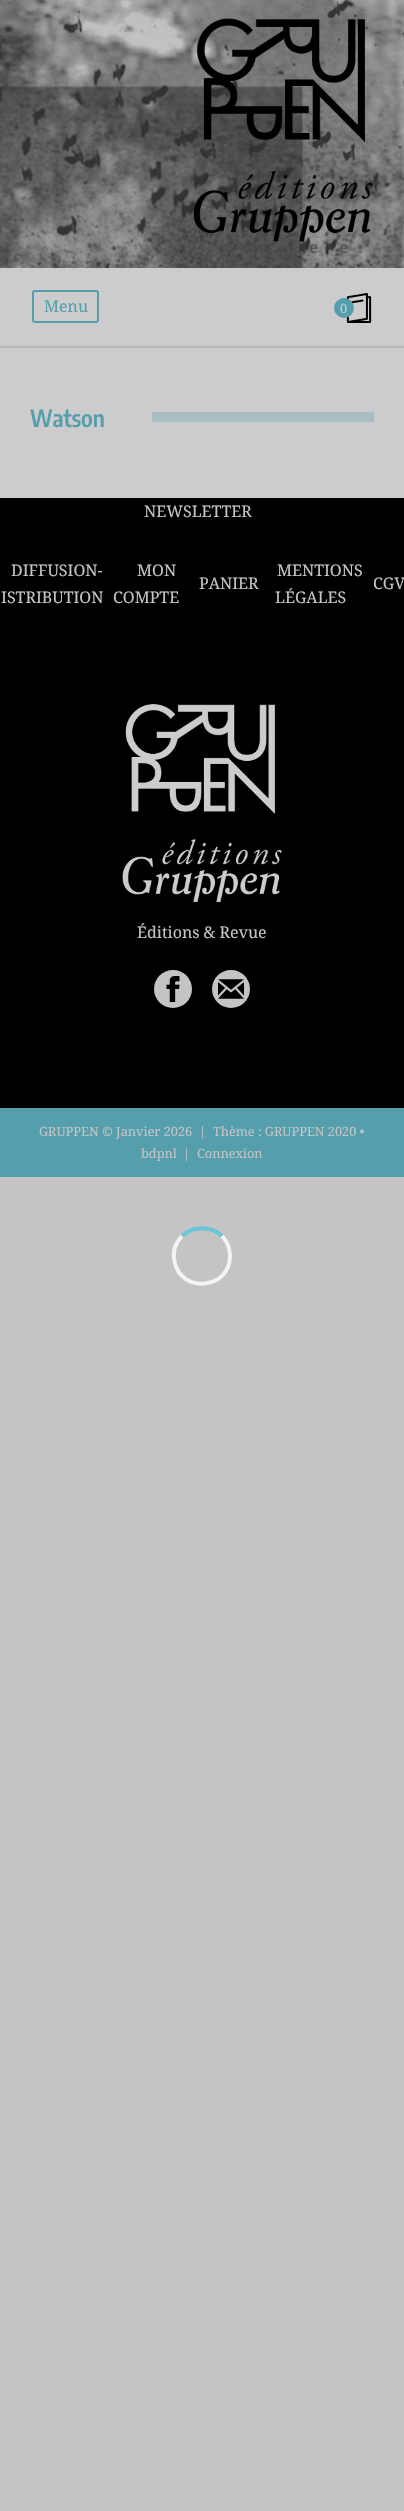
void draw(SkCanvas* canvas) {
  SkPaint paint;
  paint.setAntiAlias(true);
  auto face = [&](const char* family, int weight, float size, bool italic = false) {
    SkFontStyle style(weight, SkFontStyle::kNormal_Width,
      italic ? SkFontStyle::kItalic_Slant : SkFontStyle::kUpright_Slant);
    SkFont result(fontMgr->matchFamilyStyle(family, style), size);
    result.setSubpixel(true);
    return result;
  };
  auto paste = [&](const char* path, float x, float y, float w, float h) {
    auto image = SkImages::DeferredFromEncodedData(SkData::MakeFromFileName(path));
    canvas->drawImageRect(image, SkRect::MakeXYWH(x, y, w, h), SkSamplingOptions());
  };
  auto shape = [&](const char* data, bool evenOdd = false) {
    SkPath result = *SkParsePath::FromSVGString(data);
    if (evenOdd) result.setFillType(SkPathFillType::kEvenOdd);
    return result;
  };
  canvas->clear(0xffc4c4c4);
  paint.setColor(0xffcccccc);
  canvas->drawRect(SkRect::MakeXYWH(0, 268, 404, 230), paint);
  paint.setColor(0xffb8b8b8);
  canvas->drawRect(SkRect::MakeXYWH(0, 346, 404, 2), paint);
  paste("img/1.png", 0, 0, 404, 268);
  paste("img/2.png", 193, 18, 180, 224);
  paint.setStroke(true);
  paint.setStrokeWidth(2);
  paint.setColor(0xff549eae);
  canvas->drawRoundRect(SkRect::MakeXYWH(33, 291, 65, 31), 2, 2, paint);
  paste("img/3.png", 346, 293, 26, 30);
  paint.setStroke(false);
  canvas->drawCircle(344, 308, 10, paint);
  paint.setColor(0xffa8bec3);
  canvas->drawRect(SkRect::MakeXYWH(152, 412, 222, 10), paint);
  paint.setColor(0xff000000);
  canvas->drawRect(SkRect::MakeXYWH(0, 498, 404, 610), paint);
  paste("img/4.png", 122, 704, 160, 198);
  paint.setColor(0xffc4c4c4);
  canvas->drawCircle(173, 989, 19, paint);
  paste("img/5.png", 166, 976, 14, 26);
  canvas->drawCircle(231, 989, 19, paint);
  paste("img/6.png", 218, 979, 26, 20);
  paint.setColor(0xff549eae);
  canvas->drawRect(SkRect::MakeXYWH(0, 1108, 404, 69), paint);
  paint.setStroke(true);
  paint.setStrokeWidth(4);
  paint.setColor(0xff69c6d9);
  canvas->drawPath(shape("M182 1236C193 1225.5 211 1225.5 222 1236"), paint);
  paint.setColor(0xccffffff);
  canvas->drawPath(shape("M222 1236C227 1241.5 230 1248.5 230 1256C230 1289.5 181 1294 174.5 1261.5C172.5 1252.5 175.5 1243 182 1236"), paint);
  auto f0 = face("Noto Serif", 700, 16);
  paint.setStroke(false);
  paint.setColor(0xff575756);
  canvas->drawString("e", 309, 253, f0, paint);
  canvas->drawString("e", 339, 253, f0, paint);
  auto f1 = face("Noto Serif", 400, 16);
  paint.setColor(0xff549eae);
  canvas->drawString("Menu", 44, 312, f1, paint);
  auto f2 = face("Noto Serif", 400, 12.75f);
  paint.setColor(0xffcccccc);
  canvas->drawString("0", 340, 313, f2, paint);
  auto f3 = face("Encode Sans Condensed", 600, 23.5f);
  paint.setColor(0xff549eae);
  canvas->drawString("Watson", 30, 427, f3, paint);
  paint.setColor(0xffc4c4c4);
  {
    const struct { const char* s; float x, y; } items[] = {
      {"NEWSLETTER", 144, 517},
      {"DIFFUSION-", 11, 576},
      {"ISTRIBUTION", 1, 603},
      {"MON", 137, 576},
      {"COMPTE", 113, 603},
      {"PANIER", 199, 589},
      {"MENTIONS", 277, 576},
      {"LÉGALES", 275, 603},
      {"CGV", 373, 589},
      {"Éditions & Revue", 137, 938},
    };
    for (auto [s, x, y] : items) {
      canvas->drawString(s, x, y, f1, paint);
    }
  }
  {
    const struct { const char* s; float x, y; } items[] = {
      {"GRUPPEN © Janvier 2026", 39, 1136},
      {"|", 199, 1136},
      {"Thème : GRUPPEN 2020 •", 213, 1136},
      {"bdpnl", 141, 1158},
      {"|", 183, 1158},
      {"Connexion", 197, 1158},
    };
    for (auto [s, x, y] : items) {
      canvas->drawString(s, x, y, f2, paint);
    }
  }
}
